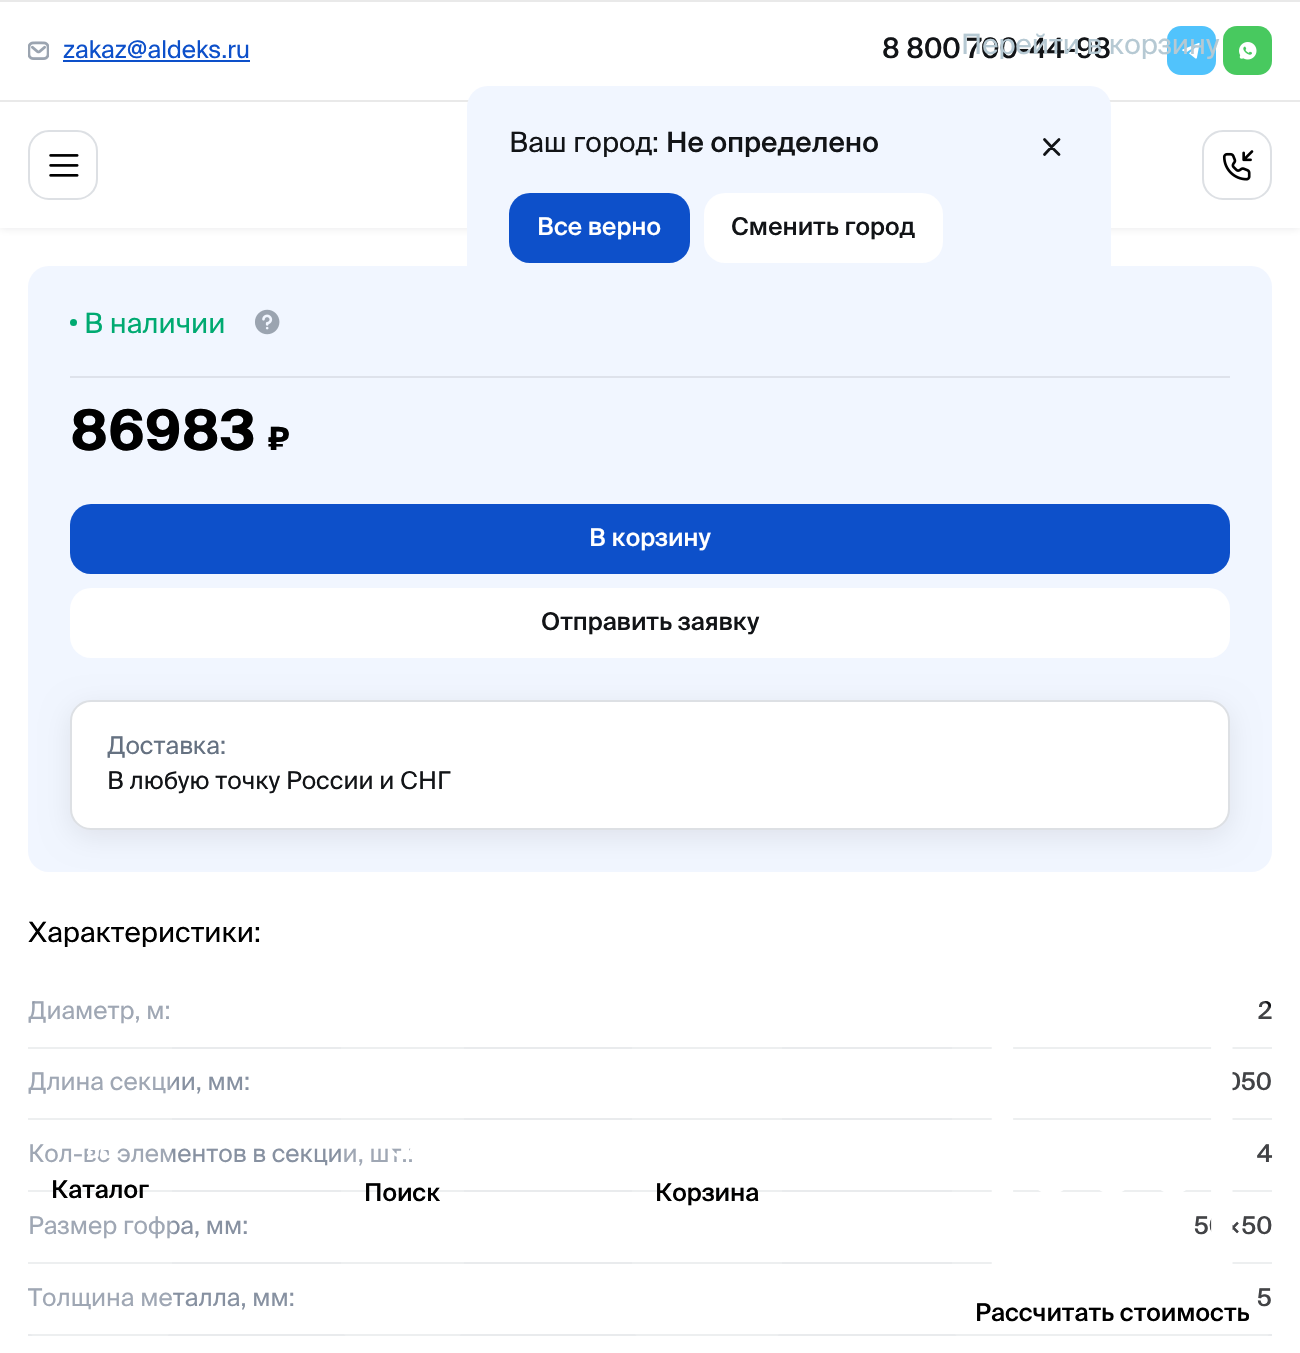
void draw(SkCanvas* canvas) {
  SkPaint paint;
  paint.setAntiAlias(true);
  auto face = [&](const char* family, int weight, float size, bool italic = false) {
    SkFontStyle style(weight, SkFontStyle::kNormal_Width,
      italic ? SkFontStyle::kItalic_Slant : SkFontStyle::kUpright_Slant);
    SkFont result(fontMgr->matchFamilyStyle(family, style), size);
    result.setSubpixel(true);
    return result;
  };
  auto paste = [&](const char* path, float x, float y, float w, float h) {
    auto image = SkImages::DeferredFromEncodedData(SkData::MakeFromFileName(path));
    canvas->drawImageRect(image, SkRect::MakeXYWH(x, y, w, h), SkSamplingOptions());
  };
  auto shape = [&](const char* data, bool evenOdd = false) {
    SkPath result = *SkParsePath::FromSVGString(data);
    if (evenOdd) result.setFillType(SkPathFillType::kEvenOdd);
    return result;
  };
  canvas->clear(0xffffffff);
  paint.setColor(0xfff1f6ff);
  canvas->drawRoundRect(SkRect::MakeXYWH(28, 266, 1244, 606), 21, 21, paint);
  paint.setColor(0xff00aa71);
  canvas->drawCircle(73.5f, 322.5f, 3.5f, paint);
  paste("img/1.png", 255, 309, 25, 26);
  paint.setColor(0xffdee2eb);
  canvas->drawRect(SkRect::MakeXYWH(70, 376, 1160, 2), paint);
  paint.setColor(0xff0d50ca);
  canvas->drawRoundRect(SkRect::MakeXYWH(70, 504, 1160, 70), 21, 21, paint);
  paint.setColor(0xffffffff);
  canvas->drawRoundRect(SkRect::MakeXYWH(70, 588, 1160, 70), 21, 21, paint);
  paint.setColor(0x14000000);
  paint.setMaskFilter(SkMaskFilter::MakeBlur(kNormal_SkBlurStyle, 14));
  canvas->drawRoundRect(SkRect::MakeXYWH(70, 707, 1160, 130), 21, 21, paint);
  paint.setMaskFilter(nullptr);
  paint.setColor(0xffffffff);
  canvas->drawRoundRect(SkRect::MakeXYWH(71, 701, 1158, 128), 20, 20, paint);
  paint.setStroke(true);
  paint.setStrokeWidth(2);
  paint.setColor(0xffdde0e4);
  canvas->drawRoundRect(SkRect::MakeXYWH(71, 701, 1158, 128), 20, 20, paint);
  paint.setStroke(false);
  {
    const struct { float x, y, w, h; SkColor color; } items[] = {
      {28, 1047, 1244, 2, 0xffe9ebed},
      {28, 1118, 1244, 2, 0xffe9ebed},
      {28, 1190, 1244, 2, 0xffe9ebed},
      {28, 1262, 1244, 2, 0xffe9ebed},
      {28, 1334, 1244, 2, 0xffe9ebed},
    };
    for (auto [x, y, w, h, color] : items) {
      paint.setColor(color);
      canvas->drawRect(SkRect::MakeXYWH(x, y, w, h), paint);
    }
  }
  paint.setColor(0x33ffffff);
  canvas->drawRoundRect(SkRect::MakeXYWH(632, 996, 150, 348), 21, 21, paint);
  paint.setColor(0x1a0d121e);
  paint.setMaskFilter(SkMaskFilter::MakeBlur(kNormal_SkBlurStyle, 4.5f));
  canvas->drawRect(SkRect::MakeXYWH(0, 0, 1300, 228), paint);
  paint.setMaskFilter(nullptr);
  paint.setColor(0xffffffff);
  canvas->drawRect(SkRect::MakeXYWH(0, 2, 1300, 226), paint);
  paint.setColor(0xffe9e9e9);
  canvas->drawRect(SkRect::MakeXYWH(0, 0, 1300, 2), paint);
  paste("img/4.png", 28, 41, 21, 19);
  paint.setColor(0xff0d50ca);
  canvas->drawRect(SkRect::MakeXYWH(63, 60, 187, 2), paint);
  paint.setColor(0xffe9e9e9);
  canvas->drawRect(SkRect::MakeXYWH(0, 100, 1300, 2), paint);
  paint.setColor(0xfff1f6ff);
  canvas->drawRoundRect(SkRect::MakeXYWH(467, 86, 644, 219), 21, 21, paint);
  paint.setStroke(true);
  paint.setStrokeWidth(2.8f);
  paint.setStrokeCap(SkPaint::kRound_Cap);
  paint.setStrokeJoin(SkPaint::kRound_Join);
  paint.setColor(0xff121417);
  canvas->drawPath(shape("M1044.5 139.5L1051.5 147M1051.5 147L1059 154.5M1051.5 147L1044.5 154.5M1051.5 147L1059 139.5"), paint);
  paint.setStroke(false);
  paint.setColor(0xff0d50ca);
  canvas->drawRoundRect(SkRect::MakeXYWH(509, 193, 181, 70), 21, 21, paint);
  paint.setColor(0xffffffff);
  canvas->drawRoundRect(SkRect::MakeXYWH(704, 193, 239, 70), 21, 21, paint);
  paint.setColor(0xff51c3fc);
  canvas->drawRoundRect(SkRect::MakeXYWH(1167, 26, 49, 49), 14, 14, paint);
  paste("img/5.png", 1182, 42, 18, 17);
  paint.setColor(0xff48c95f);
  canvas->drawRoundRect(SkRect::MakeXYWH(1223, 26, 49, 49), 14, 14, paint);
  paste("img/6.png", 1239, 42, 18, 18);
  paint.setStroke(true);
  paint.setStrokeWidth(2);
  paint.setStrokeCap(SkPaint::kButt_Cap);
  paint.setStrokeJoin(SkPaint::kMiter_Join);
  paint.setColor(0xffdde0e4);
  canvas->drawRoundRect(SkRect::MakeXYWH(29, 131, 68, 68), 20, 20, paint);
  paste("img/7.png", 49, 154, 30, 23);
  canvas->drawRoundRect(SkRect::MakeXYWH(1203, 131, 68, 68), 20, 20, paint);
  paste("img/8.png", 1222, 150, 32, 31);
  auto f0 = face("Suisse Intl", 400, 28);
  paint.setStroke(false);
  paint.setColor(0xff00aa71);
  canvas->drawString("В наличии", 84, 333, f0, paint);
  auto f1 = face("Suisse Intl", 700, 56);
  paint.setColor(0xff000000);
  canvas->drawString("86983", 70, 450, f1, paint);
  auto f2 = face("Suisse Intl", 700, 32);
  canvas->drawString("₽", 268, 450, f2, paint);
  auto f3 = face("Suisse Intl", 500, 24.5f);
  paint.setColor(0xffffffff);
  canvas->drawString("В корзину", 589, 546, f3, paint);
  paint.setColor(0xff121417);
  canvas->drawString("Отправить заявку", 541, 630, f3, paint);
  auto f4 = face("Suisse Intl", 400, 24.5f);
  paint.setColor(0xff657181);
  canvas->drawString("Доставка:", 107, 754, f4, paint);
  paint.setColor(0xff121417);
  canvas->drawString("В любую точку России и СНГ", 107, 789, f4, paint);
  paint.setColor(0xff000000);
  canvas->drawString("Характеристики:", 28, 942, f0, paint);
  paint.setColor(0xff8791a1);
  canvas->drawString("Диаметр, м:", 28, 1019, f4, paint);
  paint.setColor(0xff121417);
  canvas->drawString("2", 1258, 1019, f3, paint);
  paint.setColor(0xff8791a1);
  canvas->drawString("Длина секции, мм:", 28, 1090, f4, paint);
  paint.setColor(0xff121417);
  canvas->drawString("050", 1225, 1090, f3, paint);
  paint.setColor(0xff8791a1);
  canvas->drawString("Кол-во элементов в секции, шт.:", 28, 1162, f4, paint);
  paint.setColor(0xff121417);
  canvas->drawString("4", 1257, 1162, f3, paint);
  paint.setColor(0xff8791a1);
  canvas->drawString("Размер гофра, мм:", 28, 1234, f4, paint);
  paint.setColor(0xff121417);
  canvas->drawString("50×50", 1194, 1234, f3, paint);
  paint.setColor(0xff8791a1);
  canvas->drawString("Толщина металла, мм:", 28, 1306, f4, paint);
  paint.setColor(0xff121417);
  canvas->drawString("5", 1257, 1306, f3, paint);
  paint.setColor(0x33ffffff);
  canvas->drawRoundRect(SkRect::MakeXYWH(28, 996, 144, 348), 21, 21, paint);
  paste("img/2.png", 87, 1148, 23, 11);
  paint.setColor(0xff000000);
  canvas->drawString("Каталог", 51, 1198, f3, paint);
  paint.setColor(0x33ffffff);
  canvas->drawRoundRect(SkRect::MakeXYWH(341, 996, 123, 348), 21, 21, paint);
  paint.setStroke(true);
  paint.setStrokeWidth(2.8f);
  paint.setStrokeCap(SkPaint::kRound_Cap);
  paint.setColor(0xffffffff);
  canvas->drawPath(shape("M409 1153C398.5 1163.5 382 1147 392.5 1136.5C403.5 1126 419.5 1142 409 1153ZM409 1153L415.5 1159.5"), paint);
  paint.setStroke(false);
  paint.setColor(0xff000000);
  canvas->drawString("Поиск", 364, 1201, f3, paint);
  canvas->drawString("Корзина", 655, 1201, f3, paint);
  paint.setColor(0x33ffffff);
  canvas->drawRoundRect(SkRect::MakeXYWH(952, 996, 320, 348), 21, 21, paint);
  paste("img/3.png", 991, 1047, 242, 217);
  paint.setColor(0xff000000);
  canvas->drawString("Рассчитать стоимость", 975, 1321, f3, paint);
  paint.setColor(0xff0d50ca);
  canvas->drawString("zakaz@aldeks.ru", 63, 58, f4, paint);
  auto f5 = face("Suisse Intl", 500, 28);
  paint.setColor(0xff121417);
  canvas->drawString("8 800 700-44-98", 882, 58, f5, paint);
  paint.setColor(0xffb6c9d3);
  canvas->drawString("Перейти в корзину", 961, 54, f0, paint);
  paint.setColor(0xff121417);
  canvas->drawString("Ваш город:", 509, 152, f0, paint);
  canvas->drawString("Не определено", 666, 152, f5, paint);
  paint.setColor(0xffffffff);
  canvas->drawString("Все верно", 537, 235, f3, paint);
  paint.setColor(0xff121417);
  canvas->drawString("Сменить город", 731, 235, f3, paint);
}
